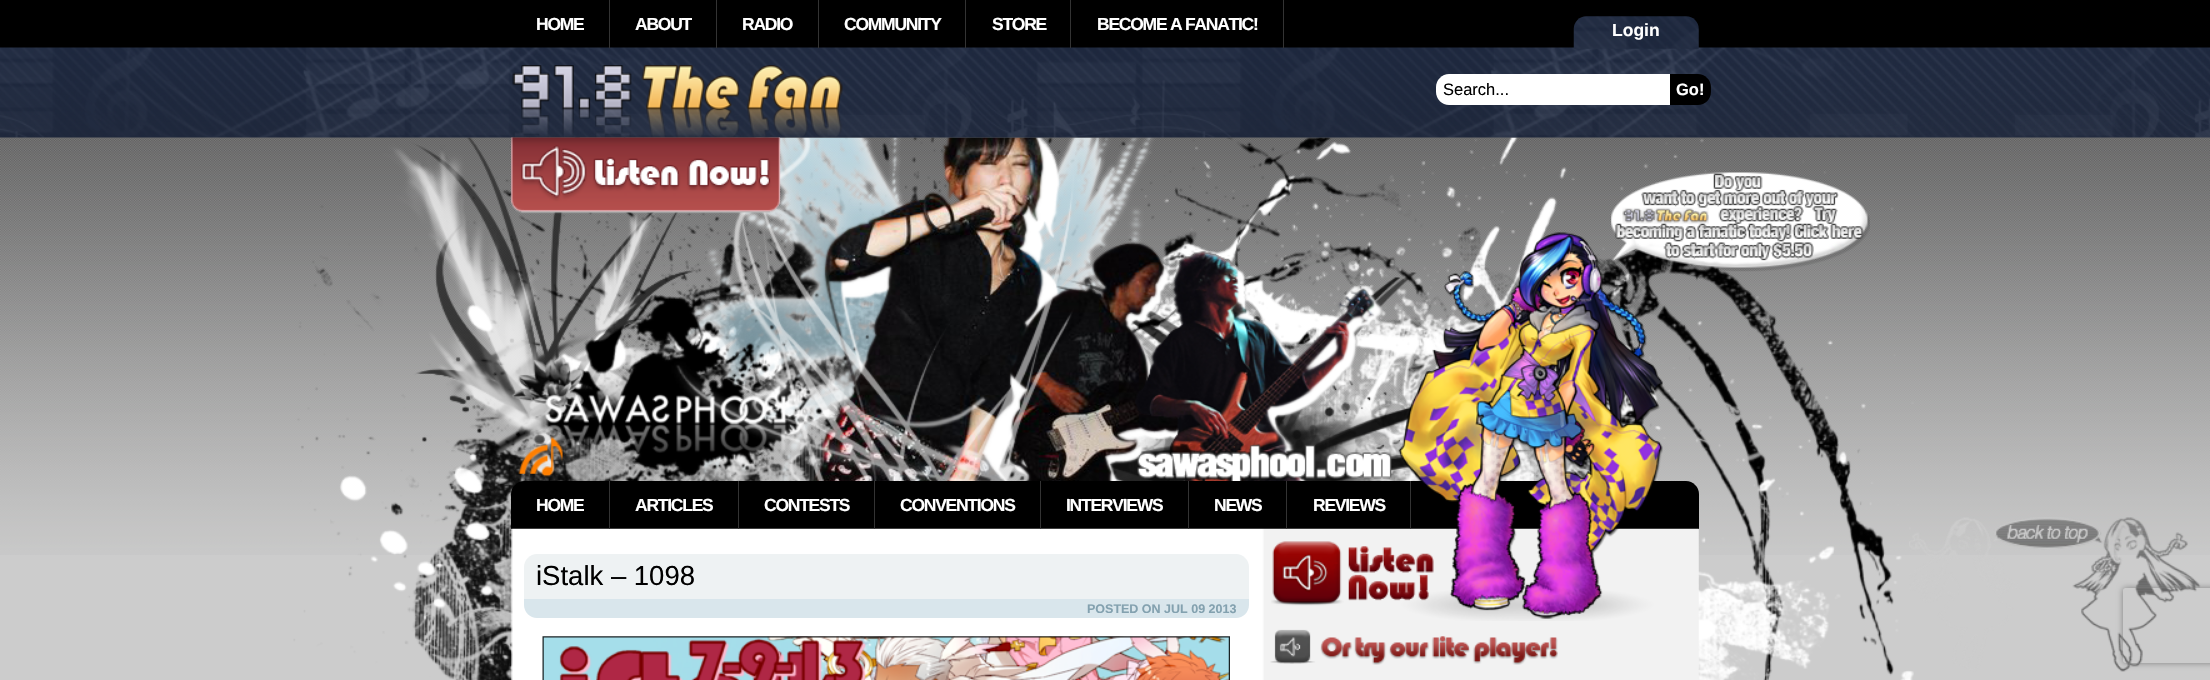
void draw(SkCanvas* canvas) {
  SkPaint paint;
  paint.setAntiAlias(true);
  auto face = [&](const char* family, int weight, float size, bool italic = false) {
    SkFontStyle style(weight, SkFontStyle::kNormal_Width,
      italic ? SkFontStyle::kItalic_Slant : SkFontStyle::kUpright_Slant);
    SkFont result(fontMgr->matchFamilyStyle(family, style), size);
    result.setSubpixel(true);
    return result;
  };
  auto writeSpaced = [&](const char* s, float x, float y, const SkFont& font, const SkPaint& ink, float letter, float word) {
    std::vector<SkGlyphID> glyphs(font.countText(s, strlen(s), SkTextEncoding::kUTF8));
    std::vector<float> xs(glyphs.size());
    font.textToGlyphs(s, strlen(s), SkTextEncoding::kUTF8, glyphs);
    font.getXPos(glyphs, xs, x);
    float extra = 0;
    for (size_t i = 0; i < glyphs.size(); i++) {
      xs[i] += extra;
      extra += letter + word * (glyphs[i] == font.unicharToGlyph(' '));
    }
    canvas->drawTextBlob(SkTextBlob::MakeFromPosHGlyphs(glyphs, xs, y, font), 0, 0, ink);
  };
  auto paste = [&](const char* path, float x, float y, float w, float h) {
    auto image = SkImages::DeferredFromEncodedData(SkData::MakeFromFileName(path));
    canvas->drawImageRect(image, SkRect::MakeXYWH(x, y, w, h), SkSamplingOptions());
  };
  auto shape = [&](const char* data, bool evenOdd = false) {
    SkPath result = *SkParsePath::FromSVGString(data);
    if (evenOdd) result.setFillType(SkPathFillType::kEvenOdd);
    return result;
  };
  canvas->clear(0xffcccccc);
  paste("img/1.png", 0, 137, 2210, 418);
  paint.setColor(0xff000000);
  canvas->drawRect(SkRect::MakeXYWH(0, 0, 2210, 48), paint);
  paste("img/14.png", 1909, 517, 292, 155);
  paste("img/9.png", 293, 137, 1621, 543);
  paste("img/2.png", 0, 47, 2210, 91);
  {
    const struct { float x, y, w, h; SkColor color; } items[] = {
      {609, 0, 1, 48, 0xff333333},
      {716, 0, 1, 48, 0xff333333},
      {818, 0, 1, 48, 0xff333333},
      {965, 0, 1, 48, 0xff333333},
      {1070, 0, 1, 48, 0xff333333},
      {1283, 0, 1, 48, 0xff333333},
    };
    for (auto [x, y, w, h, color] : items) {
      paint.setColor(color);
      canvas->drawRect(SkRect::MakeXYWH(x, y, w, h), paint);
    }
  }
  paste("img/3.png", 1573, 16, 126, 33);
  paste("img/4.png", 512, 65, 331, 73);
  paint.setColor(0xff000000);
  canvas->drawPath(shape("M524 481H1686C1693 481 1699 487 1699 494V529H511V494C511 487 517 481 524 481Z"), paint);
  paint.setColor(0xffffffff);
  canvas->drawPath(shape("M1449 74H1670V105H1449C1442 105 1436 99 1436 92V87C1436 80 1442 74 1449 74Z"), paint);
  paint.setColor(0xff000000);
  canvas->drawPath(shape("M1670 74H1698C1705 74 1711 80 1711 87V92C1711 99 1705 105 1698 105H1670Z"), paint);
  paste("img/5.png", 511, 137, 270, 77);
  paste("img/10.png", 511, 528, 1188, 152);
  paint.setColor(0xff333333);
  canvas->drawRect(SkRect::MakeXYWH(1410, 481, 1, 48), paint);
  paste("img/12.png", 1271, 541, 163, 65);
  paste("img/8.png", 1398, 232, 265, 389);
  paste("img/6.png", 1611, 172, 259, 100);
  paste("img/7.png", 518, 436, 45, 41);
  {
    const struct { float x, y, w, h; SkColor color; } items[] = {
      {609, 481, 1, 48, 0xff333333},
      {738, 481, 1, 48, 0xff333333},
      {874, 481, 1, 48, 0xff333333},
      {1040, 481, 1, 48, 0xff333333},
      {1188, 481, 1, 48, 0xff333333},
      {1286, 481, 1, 48, 0xff333333},
    };
    for (auto [x, y, w, h, color] : items) {
      paint.setColor(color);
      canvas->drawRect(SkRect::MakeXYWH(x, y, w, h), paint);
    }
  }
  paint.setColor(0xffeef2f3);
  canvas->drawPath(shape("M537 554H1236C1243 554 1249 560 1249 567V599H524V567C524 560 530 554 537 554Z"), paint);
  paint.setColor(0xffd9e6ec);
  canvas->drawPath(shape("M524 599H1249V605C1249 612 1243 618 1236 618H537C530 618 524 612 524 605Z"), paint);
  paste("img/11.png", 542, 636, 688, 44);
  paste("img/13.png", 1270, 629, 288, 36);
  canvas->save();
  canvas->clipPath(shape("M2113 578H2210V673H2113ZM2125.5 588H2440.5C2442 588 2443 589 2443 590.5V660.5C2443 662 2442 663 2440.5 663H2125.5C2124 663 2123 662 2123 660.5V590.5C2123 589 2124 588 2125.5 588Z", true), true);
  paint.setColor(0xff808080);
  paint.setMaskFilter(SkMaskFilter::MakeBlur(kNormal_SkBlurStyle, 3));
  canvas->drawRoundRect(SkRect::MakeXYWH(2123, 588, 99, 75), 2.5f, 2.5f, paint);
  paint.setMaskFilter(nullptr);
  canvas->restore();
  auto f0 = face("Liberation Sans", 700, 17.5f);
  paint.setColor(0xffffffff);
  {
    const struct { const char* s; float x, y; } items[] = {
      {"HOME", 536, 30},
      {"ABOUT", 635, 30},
      {"RADIO", 742, 30},
      {"COMMUNITY", 844, 30},
      {"STORE", 992, 30},
      {"BECOME A FANATIC!", 1097, 30},
    };
    for (auto [s, x, y] : items) {
      writeSpaced(s, x, y, f0, paint, -1.25f, 0);
    }
  }
  canvas->drawString("Login", 1612, 36, f0, paint);
  auto f1 = face("Liberation Sans", 400, 16.5f);
  paint.setColor(0xff000000);
  canvas->drawString("Search...", 1443, 95, f1, paint);
  auto f2 = face("Liberation Sans", 700, 16.5f);
  paint.setColor(0xffffffff);
  canvas->drawString("Go!", 1676, 95, f2, paint);
  {
    const struct { const char* s; float x, y; } items[] = {
      {"HOME", 536, 511},
      {"ARTICLES", 635, 511},
      {"CONTESTS", 764, 511},
      {"CONVENTIONS", 900, 511},
      {"INTERVIEWS", 1066, 511},
      {"NEWS", 1214, 511},
      {"REVIEWS", 1313, 511},
    };
    for (auto [s, x, y] : items) {
      writeSpaced(s, x, y, f0, paint, -1.25f, 0);
    }
  }
  auto f3 = face("Liberation Sans", 400, 27.5f);
  paint.setColor(0xff000000);
  canvas->drawString("iStalk – 1098", 536, 585, f3, paint);
  auto f4 = face("Liberation Sans", 700, 12.5f);
  paint.setColor(0xff83a1af);
  canvas->drawString("POSTED ON JUL 09 2013", 1087, 613, f4, paint);
}
